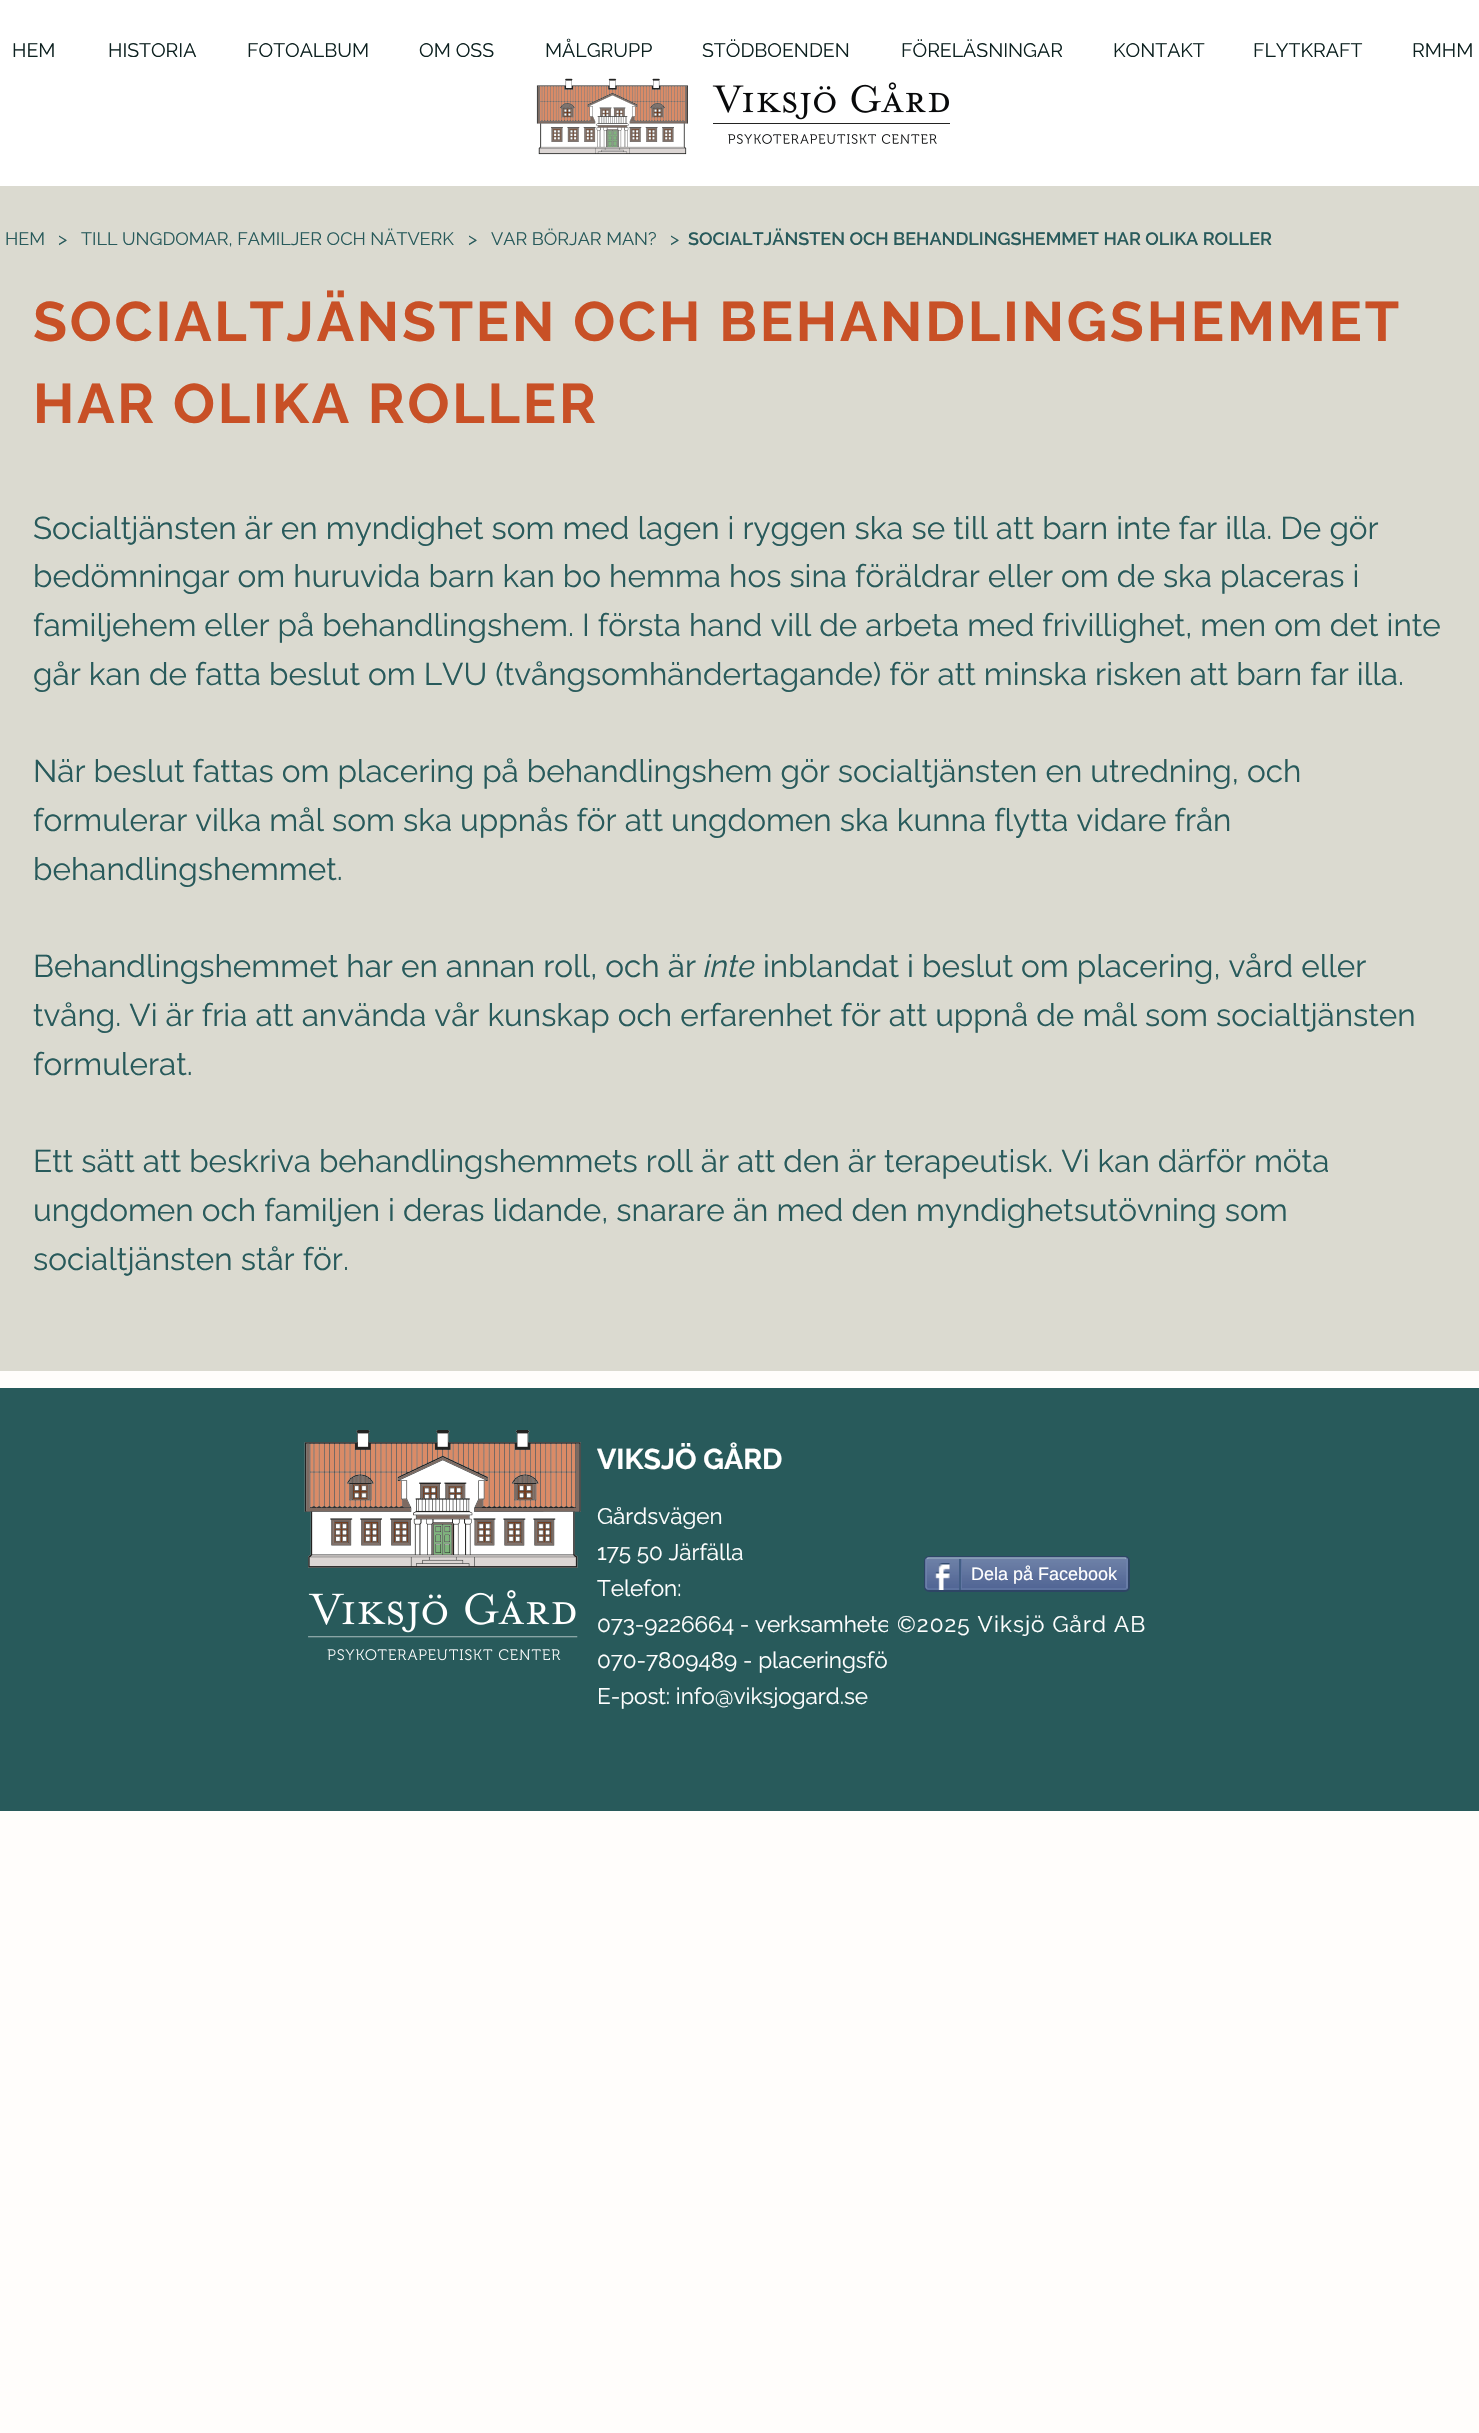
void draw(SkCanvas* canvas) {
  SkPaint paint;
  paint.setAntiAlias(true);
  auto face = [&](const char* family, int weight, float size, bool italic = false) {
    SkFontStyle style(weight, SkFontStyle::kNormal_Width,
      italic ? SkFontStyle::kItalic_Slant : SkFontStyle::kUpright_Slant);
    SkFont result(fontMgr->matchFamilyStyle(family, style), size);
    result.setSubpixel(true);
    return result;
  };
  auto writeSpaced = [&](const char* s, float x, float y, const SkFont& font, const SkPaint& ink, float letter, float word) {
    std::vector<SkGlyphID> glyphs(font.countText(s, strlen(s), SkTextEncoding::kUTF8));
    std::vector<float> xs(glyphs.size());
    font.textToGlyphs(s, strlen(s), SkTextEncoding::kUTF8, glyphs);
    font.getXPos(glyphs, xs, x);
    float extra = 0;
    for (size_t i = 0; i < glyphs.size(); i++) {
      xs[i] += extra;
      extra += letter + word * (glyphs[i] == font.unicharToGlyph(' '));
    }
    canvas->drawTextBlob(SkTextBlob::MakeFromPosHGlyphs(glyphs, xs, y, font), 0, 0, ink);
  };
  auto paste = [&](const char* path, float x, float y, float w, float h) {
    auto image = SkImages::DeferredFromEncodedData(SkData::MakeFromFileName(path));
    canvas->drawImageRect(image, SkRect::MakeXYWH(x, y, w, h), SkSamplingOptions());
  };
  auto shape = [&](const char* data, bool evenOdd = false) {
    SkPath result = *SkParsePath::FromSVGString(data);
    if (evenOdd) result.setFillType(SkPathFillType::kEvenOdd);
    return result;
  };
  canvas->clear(0xfffffdfb);
  paint.setColor(0xffffffff);
  canvas->drawRect(SkRect::MakeXYWH(0, 0, 1479, 186), paint);
  paste("img/1.png", 536, 78, 414, 77);
  paint.setColor(0xffdbdad0);
  canvas->drawRect(SkRect::MakeXYWH(0, 186, 1479, 1185), paint);
  paint.setColor(0xff285a5b);
  canvas->drawRect(SkRect::MakeXYWH(0, 1388, 888, 423), paint);
  paste("img/2.png", 304, 1430, 277, 231);
  auto f0 = face("Raleway", 400, 19.5f);
  paint.setColor(0xff0d2120);
  {
    const struct { const char* s; float x, y; } items[] = {
      {"HEM", 12, 57},
      {"HISTORIA", 108, 57},
      {"FOTOALBUM", 247, 57},
      {"OM OSS", 419, 57},
      {"MÅLGRUPP", 545, 57},
      {"STÖDBOENDEN", 702, 57},
      {"FÖRELÄSNINGAR", 901, 57},
      {"KONTAKT", 1113, 57},
      {"FLYTKRAFT", 1253, 57},
      {"RMHM", 1412, 57},
    };
    for (auto [s, x, y] : items) {
      canvas->drawString(s, x, y, f0, paint);
    }
  }
  auto f1 = face("Raleway", 400, 18);
  paint.setColor(0xff285a5b);
  {
    const struct { const char* s; float x, y; } items[] = {
      {"HEM", 5, 245},
      {">", 58, 245},
      {"TILL UNGDOMAR, FAMILJER OCH NÄTVERK", 81, 245},
      {">", 468, 245},
      {"VAR BÖRJAR MAN?", 491, 245},
      {">", 670, 245},
    };
    for (auto [s, x, y] : items) {
      canvas->drawString(s, x, y, f1, paint);
    }
  }
  auto f2 = face("Raleway", 600, 18);
  canvas->drawString("SOCIALTJÄNSTEN OCH BEHANDLINGSHEMMET HAR OLIKA ROLLER", 688, 245, f2, paint);
  auto f3 = face("Raleway", 700, 55.5f);
  paint.setColor(0xffc85026);
  writeSpaced("SOCIALTJÄNSTEN OCH BEHANDLINGSHEMMET", 33, 341, f3, paint, 2.8f, 0);
  writeSpaced("HAR OLIKA ROLLER", 33, 423, f3, paint, 2.8f, 0);
  auto f4 = face("Raleway", 400, 31.5f);
  paint.setColor(0xff285a5b);
  {
    const struct { const char* s; float x, y; } items[] = {
      {"Socialtjänsten är en myndighet som med lagen i ryggen ska se till att barn inte far illa. De gör", 33, 539},
      {"bedömningar om huruvida barn kan bo hemma hos sina föräldrar eller om de ska placeras i", 33, 587},
      {"familjehem eller på behandlingshem. I första hand vill de arbeta med frivillighet, men om det inte", 33, 636},
      {"går kan de fatta beslut om LVU (tvångsomhändertagande) för att minska risken att barn far illa.", 33, 685},
      {"När beslut fattas om placering på behandlingshem gör socialtjänsten en utredning, och", 33, 782},
      {"formulerar vilka mål som ska uppnås för att ungdomen ska kunna flytta vidare från", 33, 831},
      {"behandlingshemmet.", 33, 880},
      {"Behandlingshemmet har en annan roll, och är", 33, 977},
    };
    for (auto [s, x, y] : items) {
      canvas->drawString(s, x, y, f4, paint);
    }
  }
  auto f5 = face("Raleway", 400, 31.5f, true);
  canvas->drawString("inte", 704, 977, f5, paint);
  {
    const struct { const char* s; float x, y; } items[] = {
      {"inblandat i beslut om placering, vård eller", 763, 977},
      {"tvång. Vi är fria att använda vår kunskap och erfarenhet för att uppnå de mål som socialtjänsten", 33, 1026},
      {"formulerat.", 33, 1075},
      {"Ett sätt att beskriva behandlingshemmets roll är att den är terapeutisk. Vi kan därför möta", 33, 1172},
      {"ungdomen och familjen i deras lidande, snarare än med den myndighetsutövning som", 33, 1221},
      {"socialtjänsten står för.", 33, 1270},
    };
    for (auto [s, x, y] : items) {
      canvas->drawString(s, x, y, f4, paint);
    }
  }
  auto f6 = face("Raleway", 700, 28.5f);
  paint.setColor(0xffffffff);
  canvas->drawString("VIKSJÖ GÅRD", 597, 1469, f6, paint);
  auto f7 = face("Raleway", 400, 22.5f);
  {
    const struct { const char* s; float x, y; } items[] = {
      {"Gårdsvägen", 597, 1524},
      {"175 50 Järfälla", 597, 1560},
      {"Telefon:", 597, 1596},
      {"073-9226664 - verksamhete", 597, 1632},
      {"070-7809489 - placeringsfö", 597, 1668},
      {"E-post: info@viksjogard.se", 597, 1704},
    };
    for (auto [s, x, y] : items) {
      canvas->drawString(s, x, y, f7, paint);
    }
  }
  paint.setColor(0xff285a5b);
  canvas->drawRect(SkRect::MakeXYWH(888, 1388, 591, 423), paint);
  paint.setStroke(true);
  paint.setStrokeWidth(2);
  paint.setColor(0xff2d4565);
  canvas->drawRoundRect(SkRect::MakeXYWH(925, 1557, 204, 34), 4, 4, paint);
  paste("img/3.png", 925, 1558, 203, 32);
  paint.setStrokeWidth(1.5f);
  paint.setColor(0xff9aabc6);
  canvas->drawPath(shape("M927 1558.5L928.5 1558H1125L1126.5 1558.5"), paint);
  paint.setColor(0xff6f83ad);
  canvas->drawPath(shape("M1126.5 1558.5C1127 1559 1127 1559.5 1127 1560V1587C1127 1587.5 1127 1588 1126.5 1588.5"), paint);
  paint.setColor(0xff6176a3);
  canvas->drawPath(shape("M1126.5 1588.5L1125 1589H928.5L927 1588.5"), paint);
  paint.setColor(0xff6f83ad);
  canvas->drawPath(shape("M927 1588.5C926.5 1588 926 1587.5 926 1587V1560C926 1559.5 926.5 1559 927 1558.5"), paint);
  paste("img/4.png", 934, 1563, 16, 27);
  paint.setStroke(false);
  paint.setColor(0xff425e85);
  canvas->drawRect(SkRect::MakeXYWH(959, 1559, 2, 31), paint);
  auto f8 = face("Liberation Sans", 400, 18);
  paint.setColor(0xffffffff);
  canvas->drawString("Dela på Facebook", 971, 1580, f8, paint);
  paint.setColor(0xff6176a3);
  canvas->drawRect(SkRect::MakeXYWH(961, 1559, 1, 30), paint);
  paint.setColor(0xffffffff);
  writeSpaced("©2025 Viksjö Gård AB", 897, 1632, f7, paint, 1.1f, 0);
}
